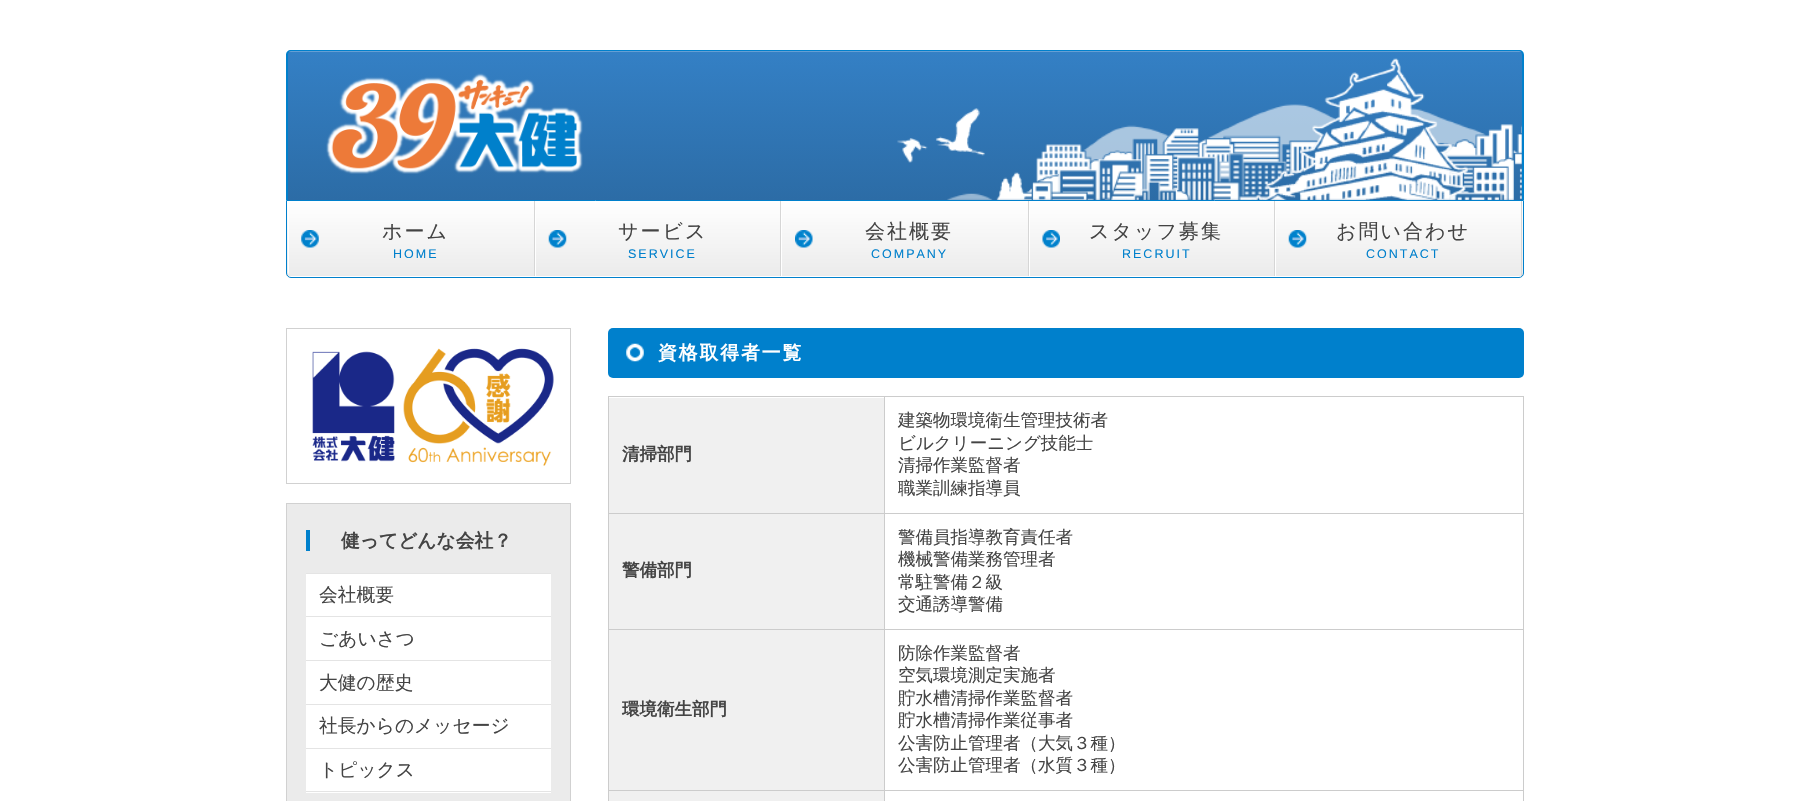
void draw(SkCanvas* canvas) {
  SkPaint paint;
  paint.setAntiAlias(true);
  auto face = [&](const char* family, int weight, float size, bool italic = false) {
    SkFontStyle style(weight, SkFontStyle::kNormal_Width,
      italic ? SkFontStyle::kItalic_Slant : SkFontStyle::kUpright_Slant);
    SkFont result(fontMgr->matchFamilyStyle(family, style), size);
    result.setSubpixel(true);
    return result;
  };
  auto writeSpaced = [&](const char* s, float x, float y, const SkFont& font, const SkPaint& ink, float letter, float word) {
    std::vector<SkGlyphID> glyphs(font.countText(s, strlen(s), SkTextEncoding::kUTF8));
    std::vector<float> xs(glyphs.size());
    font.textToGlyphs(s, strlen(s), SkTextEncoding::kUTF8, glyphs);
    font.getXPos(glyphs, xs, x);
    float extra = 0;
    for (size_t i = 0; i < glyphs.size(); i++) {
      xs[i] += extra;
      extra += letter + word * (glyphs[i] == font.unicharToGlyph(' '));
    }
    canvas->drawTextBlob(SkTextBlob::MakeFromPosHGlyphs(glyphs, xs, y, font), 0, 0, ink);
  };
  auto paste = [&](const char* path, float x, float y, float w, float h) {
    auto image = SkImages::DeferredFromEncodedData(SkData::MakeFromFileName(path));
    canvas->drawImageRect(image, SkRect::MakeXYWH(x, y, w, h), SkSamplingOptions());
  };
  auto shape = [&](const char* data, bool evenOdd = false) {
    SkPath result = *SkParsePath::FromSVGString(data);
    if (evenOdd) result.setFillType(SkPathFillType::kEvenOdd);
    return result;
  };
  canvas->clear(0xffffffff);
  paste("img/1.png", 287, 51, 1236, 149);
  paint.setColor(0xff0080cc);
  canvas->drawPath(shape("M291 50H1519C1522 50 1524 52 1524 55V200H286V55C286 52 288 50 291 50ZM291 51H1519C1521 51 1522 53 1522 55V200H288V55C288 53 289 51 291 51Z", true), paint);
  paste("img/2.png", 326, 73, 257, 101);
  canvas->save();
  canvas->clipPath(shape("M286 200H1524V273C1524 276 1522 278 1519 278H291C288 278 286 276 286 273Z"), true);
  {
    const SkColor colors[] = {0xffffffff, 0xffebebeb};
    const float stops[] = {0, 1};
    const SkPoint ends[] = {{905, 201}, {905, 276}};
    paint.setShader(SkGradientShader::MakeLinear(ends, colors, stops, 2, SkTileMode::kClamp));
    paint.setAlpha(255);
  }
  canvas->drawRect(SkRect::MakeXYWH(286, 201, 1238, 75), paint);
  canvas->restore();
  paint.setStroke(true);
  paint.setStrokeWidth(1);
  paint.setShader(nullptr);
  paint.setColor(0xff0080cc);
  canvas->drawPath(shape("M286.5 200.5H1523.5V273C1523.5 275.5 1521.5 277.5 1519 277.5H291C288.5 277.5 286.5 275.5 286.5 273Z"), paint);
  paste("img/3.png", 301, 230, 18, 18);
  paint.setStroke(false);
  paint.setColor(0xffd6d6d6);
  canvas->drawRect(SkRect::MakeXYWH(534, 201, 1, 75), paint);
  canvas->save();
  canvas->clipPath(shape("M288 201H1523V272C1523 274 1521 276 1519 276H292C290 276 288 274 288 272Z"), true);
  paint.setColor(0xffffffff);
  canvas->drawRect(SkRect::MakeXYWH(288, 201, 1, 75), paint);
  canvas->restore();
  paste("img/4.png", 548, 230, 19, 18);
  paint.setColor(0xffd6d6d6);
  canvas->drawRect(SkRect::MakeXYWH(780, 201, 1, 75), paint);
  paint.setColor(0xffffffff);
  canvas->drawRect(SkRect::MakeXYWH(535, 210, 1, 66), paint);
  paste("img/5.png", 795, 230, 18, 18);
  paint.setColor(0xffd6d6d6);
  canvas->drawRect(SkRect::MakeXYWH(1028, 201, 1, 75), paint);
  paint.setColor(0xffffffff);
  canvas->drawRect(SkRect::MakeXYWH(781, 210, 1, 66), paint);
  paste("img/6.png", 1042, 230, 18, 18);
  paint.setColor(0xffd6d6d6);
  canvas->drawRect(SkRect::MakeXYWH(1274, 201, 1, 75), paint);
  paint.setColor(0xffffffff);
  canvas->drawRect(SkRect::MakeXYWH(1029, 210, 1, 66), paint);
  paste("img/7.png", 1288, 230, 19, 18);
  paint.setColor(0xffd6d6d6);
  canvas->drawRect(SkRect::MakeXYWH(1521, 201, 1, 75), paint);
  paint.setColor(0xffffffff);
  canvas->drawRect(SkRect::MakeXYWH(1275, 210, 1, 66), paint);
  paint.setStroke(true);
  paint.setColor(0xffd1d1d1);
  canvas->drawRect(SkRect::MakeXYWH(286.5f, 328.5f, 284, 155), paint);
  paste("img/8.png", 312, 348, 242, 118);
  paint.setStroke(false);
  paint.setColor(0xffebebeb);
  canvas->drawRect(SkRect::MakeXYWH(286.5f, 503.5f, 284, 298), paint);
  paint.setStroke(true);
  paint.setColor(0xffd1d1d1);
  canvas->drawRect(SkRect::MakeXYWH(286.5f, 503.5f, 284, 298), paint);
  paint.setStroke(false);
  {
    const struct { float x, y, w, h; SkColor color; } items[] = {
      {306, 530, 4, 21, 0xff0080cc},
      {306, 573, 245, 1, 0xffe4e4e4},
      {306, 574, 245, 86, 0xffffffff},
      {306, 616, 245, 1, 0xffe4e4e4},
      {306, 660, 245, 1, 0xffe4e4e4},
      {306, 661, 245, 43, 0xffffffff},
      {306, 704, 245, 1, 0xffe4e4e4},
      {306, 705, 245, 43, 0xffffffff},
      {306, 748, 245, 1, 0xffe4e4e4},
      {306, 749, 245, 44, 0xffffffff},
      {306, 791, 245, 1, 0xffe4e4e4},
    };
    for (auto [x, y, w, h, color] : items) {
      paint.setColor(color);
      canvas->drawRect(SkRect::MakeXYWH(x, y, w, h), paint);
    }
  }
  paint.setColor(0xff0080cc);
  canvas->drawRoundRect(SkRect::MakeXYWH(608, 328, 916, 50), 5, 5, paint);
  paste("img/9.png", 626, 343, 18, 19);
  {
    const struct { float x, y, w, h; SkColor color; } items[] = {
      {608, 396, 916, 1, 0xffcccccc},
      {1523, 396, 1, 405, 0xffcccccc},
      {608, 396, 1, 405, 0xffcccccc},
      {609, 398, 275, 115, 0xfff0f0f0},
      {884, 513, 640, 1, 0xffcccccc},
      {884, 629, 640, 1, 0xffcccccc},
      {884, 790, 640, 1, 0xffcccccc},
      {884, 790, 1, 11, 0xffcccccc},
      {608, 790, 277, 1, 0xffcccccc},
      {884, 629, 1, 162, 0xffcccccc},
      {608, 629, 277, 1, 0xffcccccc},
      {884, 513, 1, 117, 0xffcccccc},
      {608, 513, 277, 1, 0xffcccccc},
      {884, 396, 1, 118, 0xffcccccc},
      {609, 514, 275, 115, 0xfff0f0f0},
      {609, 630, 275, 160, 0xfff0f0f0},
      {609, 791, 275, 10, 0xfff0f0f0},
    };
    for (auto [x, y, w, h, color] : items) {
      paint.setColor(color);
      canvas->drawRect(SkRect::MakeXYWH(x, y, w, h), paint);
    }
  }
  auto f0 = face("WenQuanYi Zen Hei", 500, 20);
  paint.setColor(0xff444444);
  writeSpaced("ホーム", 382, 238, f0, paint, 2, 0);
  auto f1 = face("Liberation Sans", 400, 12.5f);
  paint.setColor(0xff0080cc);
  writeSpaced("HOME", 393, 258, f1, paint, 2, 0);
  paint.setColor(0xff444444);
  writeSpaced("サービス", 618, 238, f0, paint, 2, 0);
  paint.setColor(0xff0080cc);
  writeSpaced("SERVICE", 628, 258, f1, paint, 2, 0);
  paint.setColor(0xff444444);
  writeSpaced("会社概要", 865, 238, f0, paint, 2, 0);
  paint.setColor(0xff0080cc);
  writeSpaced("COMPANY", 871, 258, f1, paint, 2, 0);
  paint.setColor(0xff444444);
  writeSpaced("スタッフ募集", 1089, 238, f0, paint, 2, 0);
  paint.setColor(0xff0080cc);
  writeSpaced("RECRUIT", 1122, 258, f1, paint, 2, 0);
  paint.setColor(0xff444444);
  writeSpaced("お問い合わせ", 1336, 238, f0, paint, 2, 0);
  paint.setColor(0xff0080cc);
  writeSpaced("CONTACT", 1366, 258, f1, paint, 2, 0);
  auto f2 = face("Noto Sans", 100, 18.75f);
  paint.setColor(0xff444444);
  canvas->drawString("大", 323, 547, f2, paint);
  auto f3 = face("WenQuanYi Zen Hei", 700, 18.75f);
  canvas->drawString("健ってどんな会社？", 341, 547, f3, paint);
  auto f4 = face("WenQuanYi Zen Hei", 500, 18.75f);
  {
    const struct { const char* s; float x, y; } items[] = {
      {"会社概要", 319, 601},
      {"ごあいさつ", 319, 645},
      {"大健の歴史", 319, 689},
      {"社長からのメッセージ", 319, 732},
      {"トピックス", 319, 776},
    };
    for (auto [s, x, y] : items) {
      canvas->drawString(s, x, y, f4, paint);
    }
  }
  paint.setColor(0xffffffff);
  writeSpaced("資格取得者一覧", 658, 359, f3, paint, 2, 0);
  auto f5 = face("WenQuanYi Zen Hei", 700, 17.5f);
  paint.setColor(0xff444444);
  canvas->drawString("清掃部門", 622, 460, f5, paint);
  auto f6 = face("WenQuanYi Zen Hei", 500, 17.5f);
  {
    const struct { const char* s; float x, y; } items[] = {
      {"建築物環境衛生管理技術者", 898, 426},
      {"ビルクリーニング技能士", 898, 449},
      {"清掃作業監督者", 898, 471},
      {"職業訓練指導員", 898, 494},
    };
    for (auto [s, x, y] : items) {
      canvas->drawString(s, x, y, f6, paint);
    }
  }
  canvas->drawString("警備部門", 622, 576, f5, paint);
  {
    const struct { const char* s; float x, y; } items[] = {
      {"警備員指導教育責任者", 898, 543},
      {"機械警備業務管理者", 898, 565},
      {"常駐警備２級", 898, 588},
      {"交通誘導警備", 898, 610},
    };
    for (auto [s, x, y] : items) {
      canvas->drawString(s, x, y, f6, paint);
    }
  }
  canvas->drawString("環境衛生部門", 622, 715, f5, paint);
  {
    const struct { const char* s; float x, y; } items[] = {
      {"防除作業監督者", 898, 659},
      {"空気環境測定実施者", 898, 681},
      {"貯水槽清掃作業監督者", 898, 704},
      {"貯水槽清掃作業従事者", 898, 726},
      {"公害防止管理者（大気３種）", 898, 749},
      {"公害防止管理者（水質３種）", 898, 771},
    };
    for (auto [s, x, y] : items) {
      canvas->drawString(s, x, y, f6, paint);
    }
  }
}
